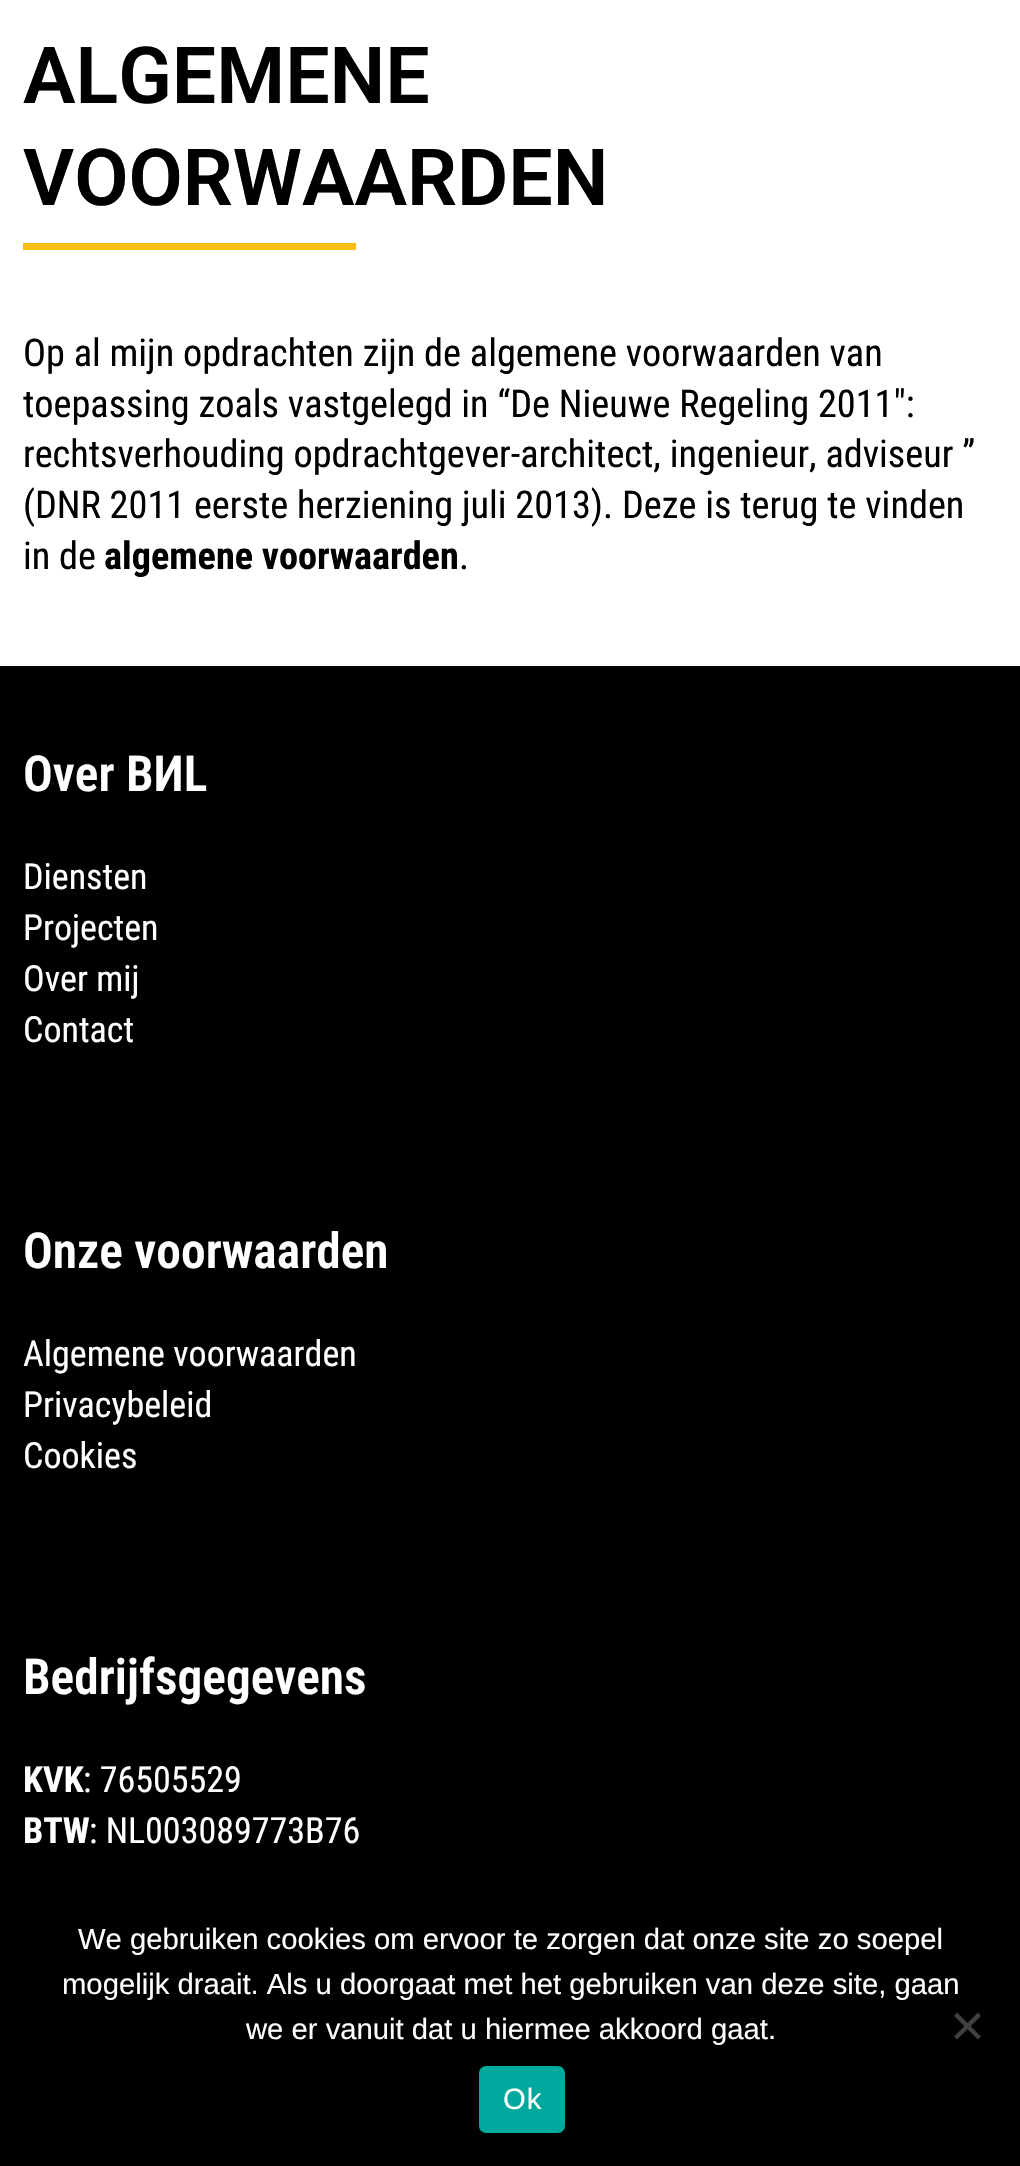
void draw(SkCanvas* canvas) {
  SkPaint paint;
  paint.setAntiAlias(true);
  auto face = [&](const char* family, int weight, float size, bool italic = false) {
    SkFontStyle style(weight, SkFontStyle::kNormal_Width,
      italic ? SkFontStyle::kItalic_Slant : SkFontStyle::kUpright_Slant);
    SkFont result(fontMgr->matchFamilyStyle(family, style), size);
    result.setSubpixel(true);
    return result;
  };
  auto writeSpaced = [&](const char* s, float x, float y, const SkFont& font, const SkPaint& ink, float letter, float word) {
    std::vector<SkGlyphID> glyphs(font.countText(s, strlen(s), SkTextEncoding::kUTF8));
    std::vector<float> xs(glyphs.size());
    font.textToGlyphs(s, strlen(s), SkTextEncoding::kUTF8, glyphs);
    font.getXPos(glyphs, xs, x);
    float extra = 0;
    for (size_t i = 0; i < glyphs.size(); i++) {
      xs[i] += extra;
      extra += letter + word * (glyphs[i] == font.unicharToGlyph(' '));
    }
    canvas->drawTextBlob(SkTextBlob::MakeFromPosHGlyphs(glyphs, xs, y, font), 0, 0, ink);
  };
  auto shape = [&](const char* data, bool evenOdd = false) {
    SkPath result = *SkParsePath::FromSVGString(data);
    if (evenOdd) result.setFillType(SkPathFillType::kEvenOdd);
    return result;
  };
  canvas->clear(0xffffffff);
  paint.setColor(0xfff6be11);
  canvas->drawRect(SkRect::MakeXYWH(23, 243, 333, 7), paint);
  paint.setColor(0xff000000);
  canvas->drawRect(SkRect::MakeXYWH(0, 666, 1020, 1500), paint);
  paint.setColor(0xff404040);
  canvas->drawPath(shape("M978 2012.5L981 2016L957 2039.5L954 2036.5Z"), paint);
  canvas->drawPath(shape("M954 2016L957 2012.5L981 2036.5L978 2039.5Z"), paint);
  paint.setColor(0xff00a99d);
  canvas->drawRoundRect(SkRect::MakeXYWH(479, 2066, 86, 67), 7, 7, paint);
  auto f0 = face("Roboto", 600, 78.75f);
  paint.setColor(0xff000000);
  canvas->drawString("ALGEMENE", 23, 103, f0, paint);
  canvas->drawString("VOORWAARDEN", 23, 205, f0, paint);
  auto f1 = face("Roboto Condensed", 400, 38.25f);
  {
    const struct { const char* s; float x, y; } items[] = {
      {"Op al mijn opdrachten zijn de algemene voorwaarden van", 23, 366},
      {"toepassing zoals vastgelegd in “De Nieuwe Regeling 2011″:", 23, 417},
      {"rechtsverhouding opdrachtgever-architect, ingenieur, adviseur ”", 23, 467},
      {"(DNR 2011 eerste herziening juli 2013). Deze is terug te vinden", 23, 518},
      {"in de", 23, 569},
    };
    for (auto [s, x, y] : items) {
      canvas->drawString(s, x, y, f1, paint);
    }
  }
  auto f2 = face("Roboto Condensed", 700, 38.25f);
  canvas->drawString("algemene voorwaarden", 104, 569, f2, paint);
  canvas->drawString(".", 459, 569, f1, paint);
  auto f3 = face("Roboto Condensed", 600, 49.5f);
  paint.setColor(0xffffffff);
  canvas->drawString("Over BИL", 23, 791, f3, paint);
  auto f4 = face("Roboto Condensed", 400, 36);
  {
    const struct { const char* s; float x, y; } items[] = {
      {"Diensten", 23, 889},
      {"Projecten", 23, 940},
      {"Over mij", 23, 991},
      {"Contact", 23, 1042},
    };
    for (auto [s, x, y] : items) {
      canvas->drawString(s, x, y, f4, paint);
    }
  }
  canvas->drawString("Onze voorwaarden", 23, 1268, f3, paint);
  {
    const struct { const char* s; float x, y; } items[] = {
      {"Algemene voorwaarden", 23, 1366},
      {"Privacybeleid", 23, 1417},
      {"Cookies", 23, 1468},
    };
    for (auto [s, x, y] : items) {
      canvas->drawString(s, x, y, f4, paint);
    }
  }
  canvas->drawString("Bedrijfsgegevens", 23, 1694, f3, paint);
  auto f5 = face("Roboto Condensed", 700, 36);
  canvas->drawString("KVK", 23, 1792, f5, paint);
  canvas->drawString(": 76505529", 83, 1792, f4, paint);
  canvas->drawString("BTW", 23, 1843, f5, paint);
  canvas->drawString(": NL003089773B76", 89, 1843, f4, paint);
  auto f6 = face("Liberation Sans", 400, 29.25f);
  {
    const struct { const char* s; float x, y; } items[] = {
      {"We gebruiken cookies om ervoor te zorgen dat onze site zo soepel", 78, 1949},
      {"mogelijk draait. Als u doorgaat met het gebruiken van deze site, gaan", 62, 1994},
      {"we er vanuit dat u hiermee akkoord gaat.", 246, 2039},
    };
    for (auto [s, x, y] : items) {
      canvas->drawString(s, x, y, f6, paint);
    }
  }
  writeSpaced("Ok", 503, 2109, f6, paint, 1, 0);
}
